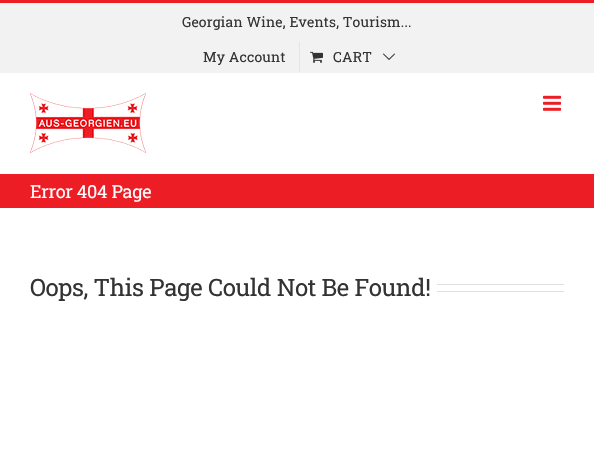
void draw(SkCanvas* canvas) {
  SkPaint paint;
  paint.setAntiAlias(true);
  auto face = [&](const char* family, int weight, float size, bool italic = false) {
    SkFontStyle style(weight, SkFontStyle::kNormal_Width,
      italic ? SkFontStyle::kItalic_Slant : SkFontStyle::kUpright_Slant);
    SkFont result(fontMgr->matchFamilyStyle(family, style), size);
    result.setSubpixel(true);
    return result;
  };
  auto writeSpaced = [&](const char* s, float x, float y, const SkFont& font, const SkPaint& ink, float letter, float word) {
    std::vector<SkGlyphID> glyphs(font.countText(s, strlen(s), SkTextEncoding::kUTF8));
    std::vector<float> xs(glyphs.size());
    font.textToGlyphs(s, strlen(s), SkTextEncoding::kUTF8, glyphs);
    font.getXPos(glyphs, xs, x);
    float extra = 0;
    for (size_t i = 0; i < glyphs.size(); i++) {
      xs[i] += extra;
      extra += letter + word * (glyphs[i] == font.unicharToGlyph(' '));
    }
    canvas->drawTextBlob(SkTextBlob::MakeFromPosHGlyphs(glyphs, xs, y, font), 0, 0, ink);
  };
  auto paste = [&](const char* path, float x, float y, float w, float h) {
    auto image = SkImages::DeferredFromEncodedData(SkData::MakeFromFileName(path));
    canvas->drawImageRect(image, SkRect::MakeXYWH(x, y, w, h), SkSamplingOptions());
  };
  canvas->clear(0xffffffff);
  {
    const struct { float x, y, w, h; SkColor color; } items[] = {
      {0, 3, 594, 70, 0xfff2f2f2},
      {0, 0, 594, 3, 0xffed1d25},
      {299, 42, 1, 30, 0xffe5e5e5},
    };
    for (auto [x, y, w, h, color] : items) {
      paint.setColor(color);
      canvas->drawRect(SkRect::MakeXYWH(x, y, w, h), paint);
    }
  }
  paste("img/1.png", 310, 51, 13, 12);
  paste("img/2.png", 383, 53, 12, 7);
  paste("img/3.png", 30, 93, 116, 60);
  paste("img/4.png", 543, 95, 18, 16);
  {
    const struct { float x, y, w, h; SkColor color; } items[] = {
      {0, 174, 594, 34, 0xffed1d25},
      {437, 284, 127, 1, 0xffe0dede},
      {437, 291, 127, 1, 0xffe0dede},
    };
    for (auto [x, y, w, h, color] : items) {
      paint.setColor(color);
      canvas->drawRect(SkRect::MakeXYWH(x, y, w, h), paint);
    }
  }
  auto f0 = face("Roboto Slab", 400, 14);
  paint.setColor(0xff333333);
  {
    const struct { const char* s; float x, y; } items[] = {
      {"Georgian Wine, Events, Tourism...", 182, 27},
      {"My Account", 203, 62},
      {"CART", 333, 62},
    };
    for (auto [s, x, y] : items) {
      writeSpaced(s, x, y, f0, paint, 0.2f, 0);
    }
  }
  auto f1 = face("Roboto Slab", 400, 18);
  paint.setColor(0xffffffff);
  writeSpaced("Error 404 Page", 30, 198, f1, paint, -0.25f, 0);
  auto f2 = face("Roboto Slab", 400, 24);
  paint.setColor(0xff333333);
  writeSpaced("Oops, This Page Could Not Be Found!", 30, 296, f2, paint, -0.35f, 0);
}
